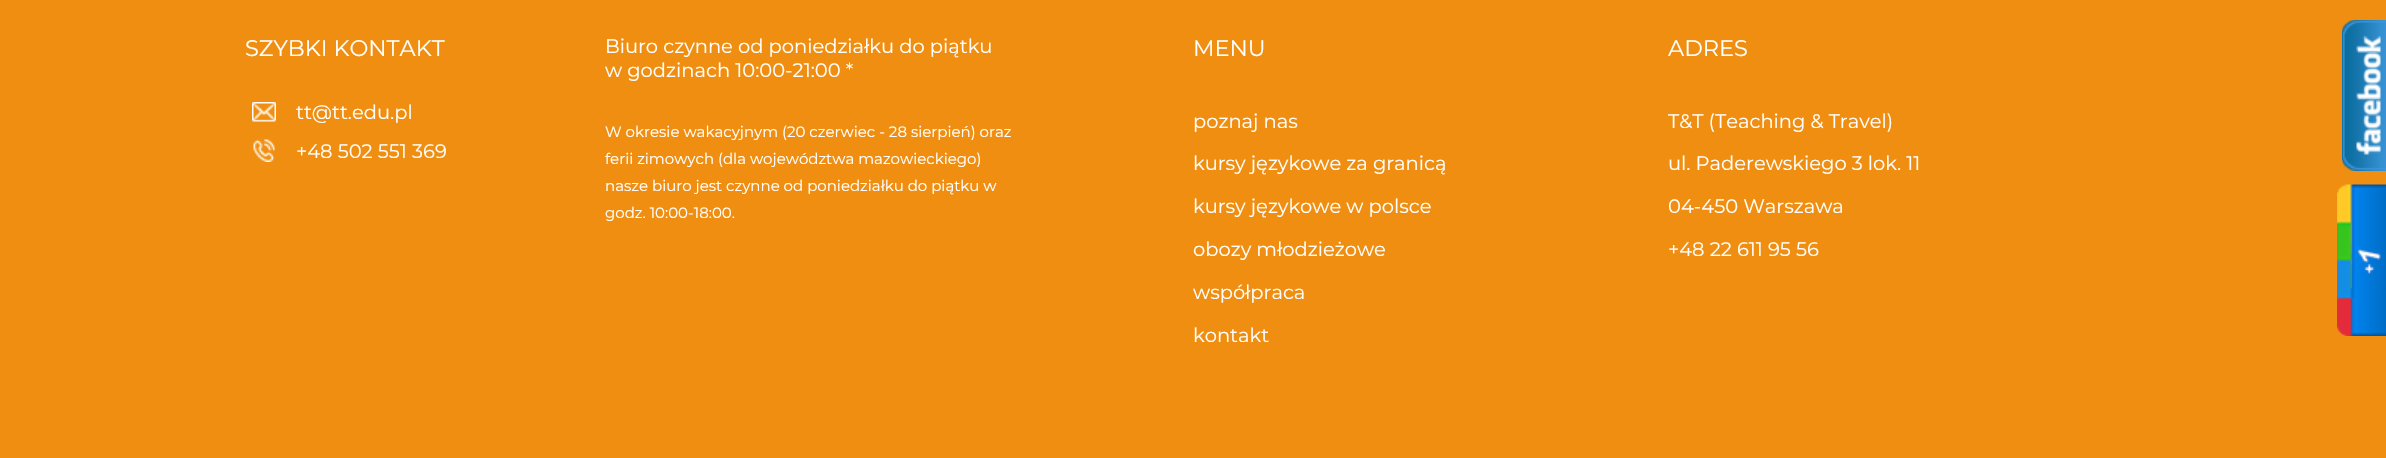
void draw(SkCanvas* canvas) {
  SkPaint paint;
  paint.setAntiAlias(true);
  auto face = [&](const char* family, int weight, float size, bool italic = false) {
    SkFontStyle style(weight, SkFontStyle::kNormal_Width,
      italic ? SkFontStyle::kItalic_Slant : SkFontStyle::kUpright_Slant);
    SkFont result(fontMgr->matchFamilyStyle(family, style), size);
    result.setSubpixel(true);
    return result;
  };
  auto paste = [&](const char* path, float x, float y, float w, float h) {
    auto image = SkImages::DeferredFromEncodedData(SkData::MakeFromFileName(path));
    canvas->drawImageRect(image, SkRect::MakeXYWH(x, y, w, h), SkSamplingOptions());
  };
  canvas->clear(0xffef8e10);
  paste("img/1.png", 252, 102, 24, 20);
  paste("img/2.png", 253, 139, 22, 23);
  paste("img/3.png", 2342, 20, 44, 151);
  paste("img/4.png", 2337, 184, 49, 152);
  auto f0 = face("Montserrat", 400, 22.5f);
  paint.setColor(0xffffffff);
  canvas->drawString("SZYBKI KONTAKT", 245, 56, f0, paint);
  auto f1 = face("Montserrat", 400, 19.5f);
  {
    const struct { const char* s; float x, y; } items[] = {
      {"tt@tt.edu.pl", 296, 119},
      {"+48 502 551 369", 296, 158},
      {"Biuro czynne od poniedziałku do piątku", 605, 53},
      {"w godzinach 10:00-21:00 *", 605, 77},
    };
    for (auto [s, x, y] : items) {
      canvas->drawString(s, x, y, f1, paint);
    }
  }
  auto f2 = face("Montserrat", 400, 15);
  {
    const struct { const char* s; float x, y; } items[] = {
      {"W okresie wakacyjnym (20 czerwiec - 28 sierpień) oraz", 605, 137},
      {"ferii zimowych (dla województwa mazowieckiego)", 605, 164},
      {"nasze biuro jest czynne od poniedziałku do piątku w", 605, 191},
      {"godz. 10:00-18:00.", 605, 218},
    };
    for (auto [s, x, y] : items) {
      canvas->drawString(s, x, y, f2, paint);
    }
  }
  canvas->drawString("MENU", 1193, 56, f0, paint);
  {
    const struct { const char* s; float x, y; } items[] = {
      {"poznaj nas", 1193, 128},
      {"kursy językowe za granicą", 1193, 170},
      {"kursy językowe w polsce", 1193, 213},
      {"obozy młodzieżowe", 1193, 256},
      {"współpraca", 1193, 299},
      {"kontakt", 1193, 342},
    };
    for (auto [s, x, y] : items) {
      canvas->drawString(s, x, y, f1, paint);
    }
  }
  canvas->drawString("ADRES", 1668, 56, f0, paint);
  {
    const struct { const char* s; float x, y; } items[] = {
      {"T&T (Teaching & Travel)", 1668, 128},
      {"ul. Paderewskiego 3 lok. 11", 1668, 170},
      {"04-450 Warszawa", 1668, 213},
      {"+48 22 611 95 56", 1668, 256},
    };
    for (auto [s, x, y] : items) {
      canvas->drawString(s, x, y, f1, paint);
    }
  }
}
